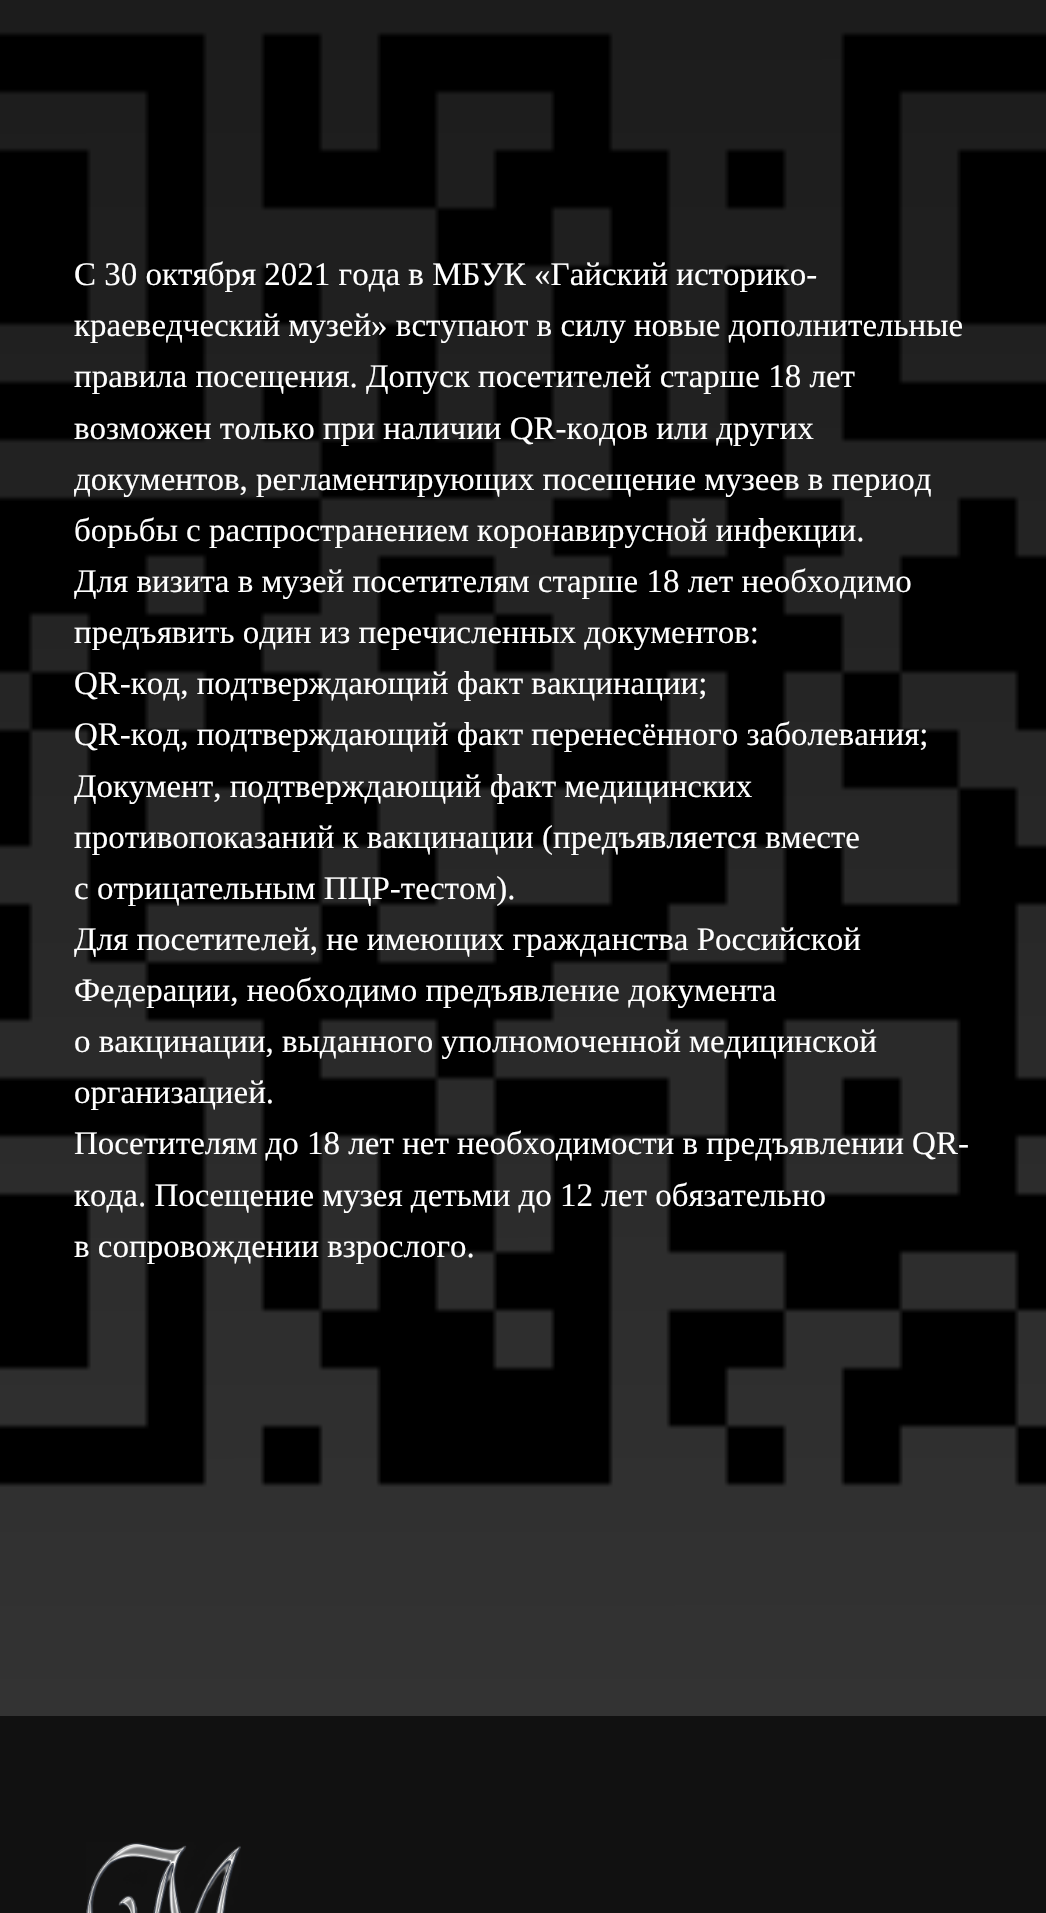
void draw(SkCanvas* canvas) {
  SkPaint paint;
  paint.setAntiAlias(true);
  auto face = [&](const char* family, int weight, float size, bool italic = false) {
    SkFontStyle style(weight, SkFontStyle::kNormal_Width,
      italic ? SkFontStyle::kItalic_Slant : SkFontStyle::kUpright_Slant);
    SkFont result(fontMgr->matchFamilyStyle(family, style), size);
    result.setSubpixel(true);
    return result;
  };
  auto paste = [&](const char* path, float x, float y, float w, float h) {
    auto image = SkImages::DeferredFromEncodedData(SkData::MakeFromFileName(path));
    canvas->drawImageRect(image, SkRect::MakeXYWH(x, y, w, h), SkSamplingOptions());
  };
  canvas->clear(0xff111111);
  paste("img/1.png", 0, 1572, 1046, 144);
  paste("img/2.png", 0, 0, 1046, 1572);
  {
    const SkColor colors[] = {0xe6000000, 0xcc000000};
    const float stops[] = {0, 1};
    const SkPoint ends[] = {{523, -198}, {524, 1716}};
    paint.setShader(SkGradientShader::MakeLinear(ends, colors, stops, 2, SkTileMode::kClamp));
    paint.setAlpha(255);
  }
  canvas->drawRect(SkRect::MakeXYWH(0, 0, 1046, 1716), paint);
  paste("img/3.png", 86, 1842, 155, 71);
  auto f0 = face("Liberation Serif", 400, 33);
  paint.setShader(nullptr);
  paint.setColor(0xffffffff);
  {
    const struct { const char* s; float x, y; } items[] = {
      {"С 30 октября 2021 года в МБУК «Гайский историко-", 74, 285},
      {"краеведческий музей» вступают в силу новые дополнительные", 74, 336},
      {"правила посещения. Допуск посетителей старше 18 лет", 74, 387},
      {"возможен только при наличии QR-кодов или других", 74, 439},
      {"документов, регламентирующих посещение музеев в период", 74, 490},
      {"борьбы с распространением коронавирусной инфекции.", 74, 541},
      {"Для визита в музей посетителям старше 18 лет необходимо", 74, 592},
      {"предъявить один из перечисленных документов:", 74, 643},
      {"QR-код, подтверждающий факт вакцинации;", 74, 694},
      {"QR-код, подтверждающий факт перенесённого заболевания;", 74, 745},
      {"Документ, подтверждающий факт медицинских", 74, 797},
      {"противопоказаний к вакцинации (предъявляется вместе", 74, 848},
      {"с отрицательным ПЦР-тестом).", 74, 899},
      {"Для посетителей, не имеющих гражданства Российской", 74, 950},
      {"Федерации, необходимо предъявление документа", 74, 1001},
      {"о вакцинации, выданного уполномоченной медицинской", 74, 1052},
      {"организацией.", 74, 1103},
      {"Посетителям до 18 лет нет необходимости в предъявлении QR-", 74, 1154},
      {"кода. Посещение музея детьми до 12 лет обязательно", 74, 1206},
      {"в сопровождении взрослого.", 74, 1257},
    };
    for (auto [s, x, y] : items) {
      canvas->drawString(s, x, y, f0, paint);
    }
  }
}
